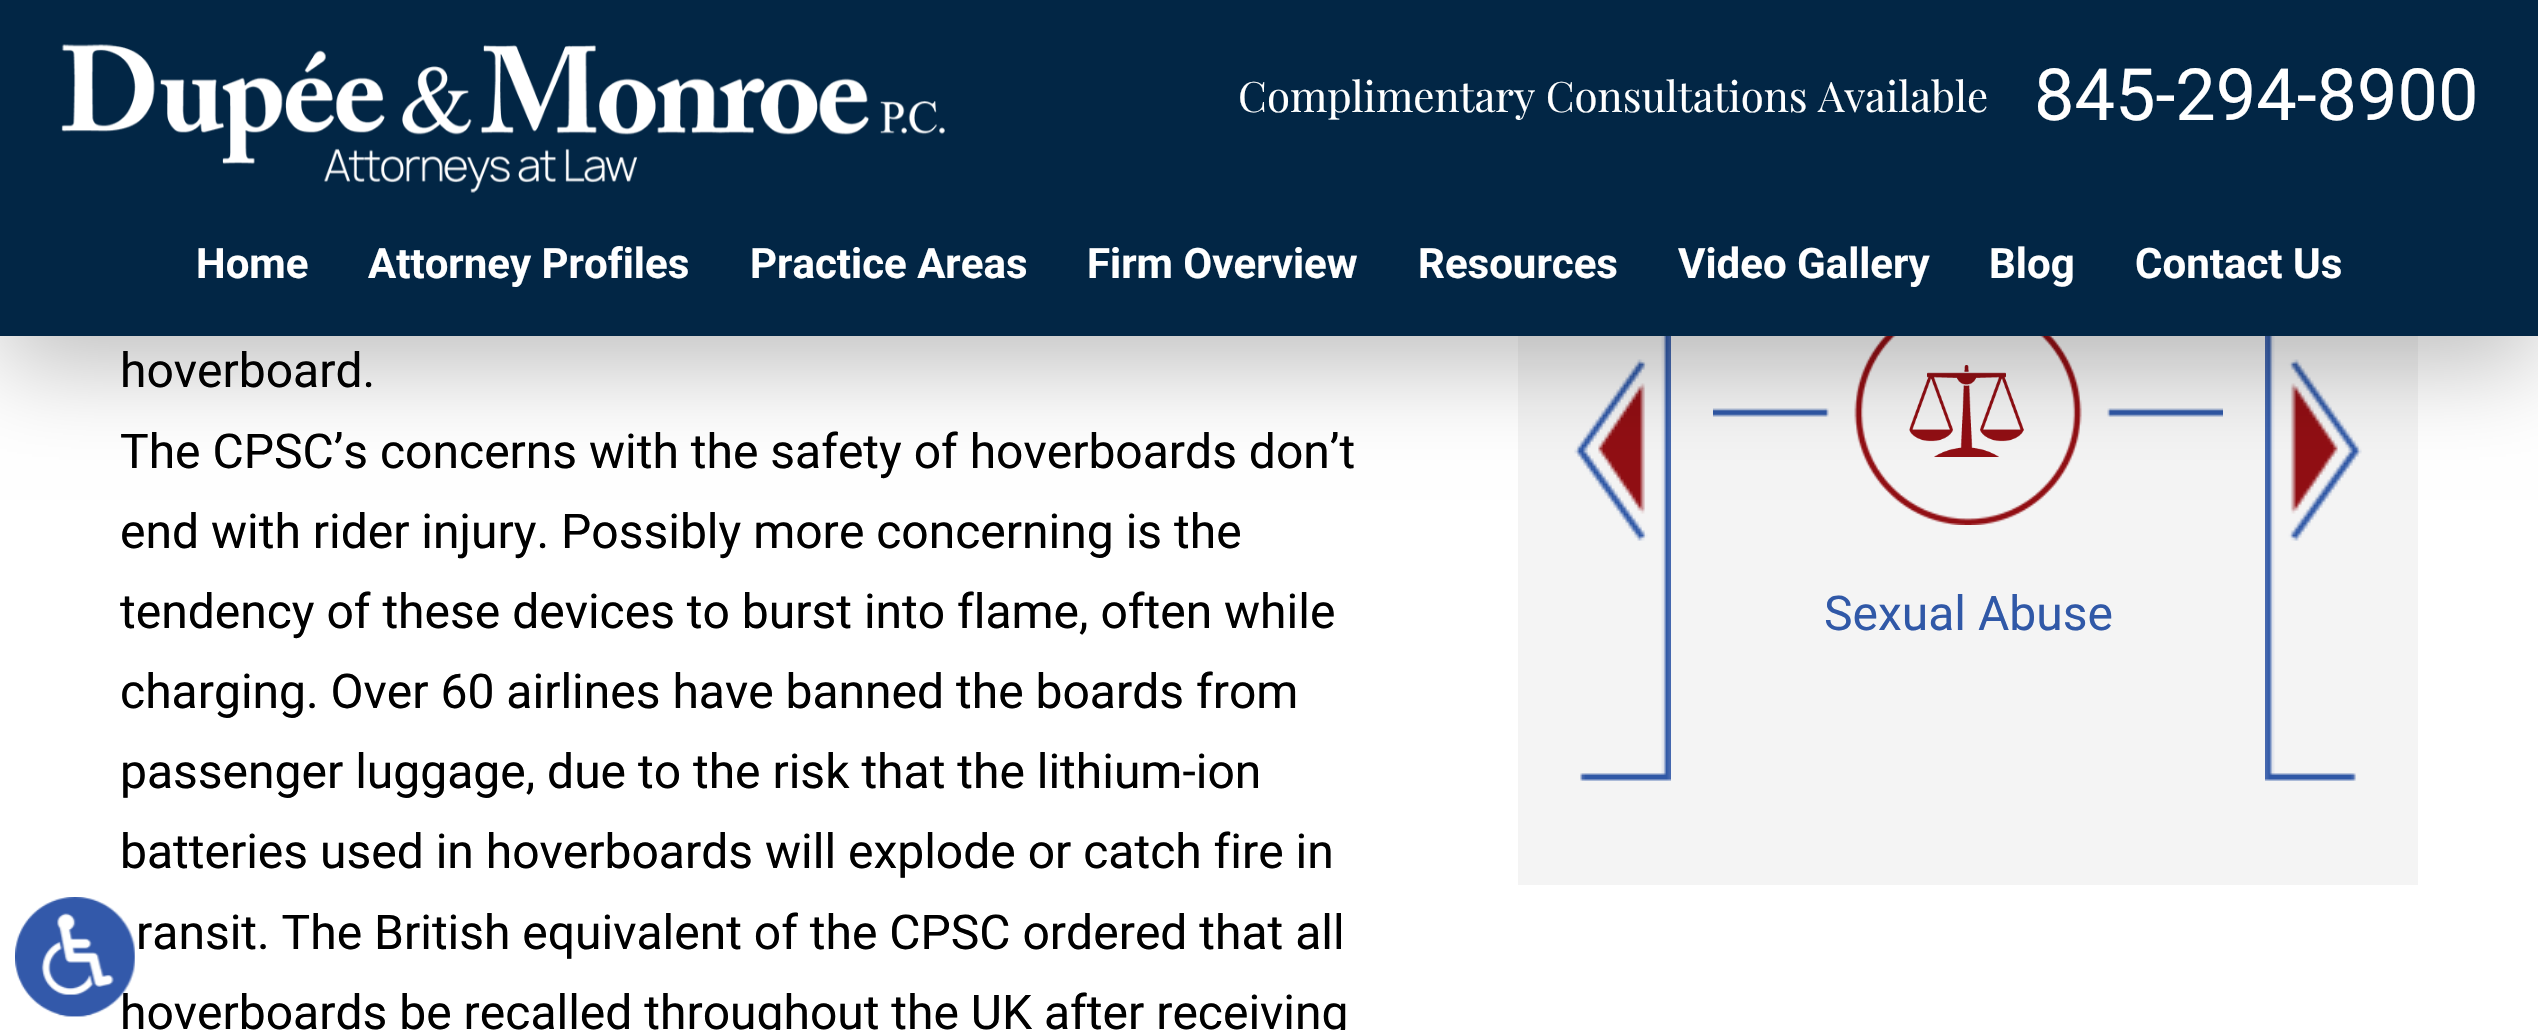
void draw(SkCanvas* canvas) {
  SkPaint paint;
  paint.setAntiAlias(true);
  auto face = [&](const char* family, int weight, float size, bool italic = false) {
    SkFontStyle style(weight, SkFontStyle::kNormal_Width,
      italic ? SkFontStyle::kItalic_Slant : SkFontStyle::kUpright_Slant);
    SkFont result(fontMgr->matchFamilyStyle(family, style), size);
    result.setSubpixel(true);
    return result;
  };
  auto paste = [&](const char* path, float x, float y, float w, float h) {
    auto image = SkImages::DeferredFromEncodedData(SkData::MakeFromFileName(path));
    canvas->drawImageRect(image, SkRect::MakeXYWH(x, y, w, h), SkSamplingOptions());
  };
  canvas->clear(0xffffffff);
  paint.setColor(0xfff4f4f4);
  canvas->drawRect(SkRect::MakeXYWH(1518, 336, 900, 549), paint);
  paste("img/3.png", 1574, 336, 97, 445);
  paste("img/4.png", 2265, 336, 97, 445);
  paste("img/5.png", 1713, 336, 510, 189);
  paste("img/6.png", 1909, 365, 115, 92);
  paint.setColor(0x40000000);
  paint.setMaskFilter(SkMaskFilter::MakeBlur(kNormal_SkBlurStyle, 45));
  canvas->drawRect(SkRect::MakeXYWH(0, 30, 2538, 336), paint);
  paint.setMaskFilter(nullptr);
  paint.setColor(0xff022645);
  canvas->drawRect(SkRect::MakeXYWH(0, 0, 2538, 336), paint);
  paste("img/2.png", 61, 44, 884, 149);
  auto f0 = face("Playfair Display", 400, 42);
  paint.setColor(0xffffffff);
  canvas->drawString("Complimentary Consultations Available", 1238, 112, f0, paint);
  auto f1 = face("Roboto", 400, 72);
  canvas->drawString("845-294-8900", 2034, 120, f1, paint);
  auto f2 = face("Roboto", 700, 42);
  {
    const struct { const char* s; float x, y; } items[] = {
      {"Home", 196, 278},
      {"Attorney Profiles", 368, 278},
      {"Practice Areas", 750, 278},
      {"Firm Overview", 1087, 278},
      {"Resources", 1418, 278},
      {"Video Gallery", 1678, 278},
      {"Blog", 1989, 278},
      {"Contact Us", 2135, 278},
    };
    for (auto [s, x, y] : items) {
      canvas->drawString(s, x, y, f2, paint);
    }
  }
  auto f3 = face("Roboto", 400, 48);
  paint.setColor(0xff000000);
  {
    const struct { const char* s; float x, y; } items[] = {
      {"hoverboard.", 120, 387},
      {"The CPSC’s concerns with the safety of hoverboards don’t", 120, 468},
      {"end with rider injury. Possibly more concerning is the", 120, 548},
      {"tendency of these devices to burst into flame, often while", 120, 628},
      {"charging. Over 60 airlines have banned the boards from", 120, 708},
      {"passenger luggage, due to the risk that the lithium-ion", 120, 788},
      {"batteries used in hoverboards will explode or catch fire in", 120, 868},
      {"ransit. The British equivalent of the CPSC ordered that all", 136, 949},
      {"hoverboards be recalled throughout the UK after receiving", 120, 1029},
    };
    for (auto [s, x, y] : items) {
      canvas->drawString(s, x, y, f3, paint);
    }
  }
  paste("img/1.png", 15, 897, 120, 120);
  paint.setColor(0xff3058a7);
  canvas->drawString("Sexual Abuse", 1824, 630, f3, paint);
}
